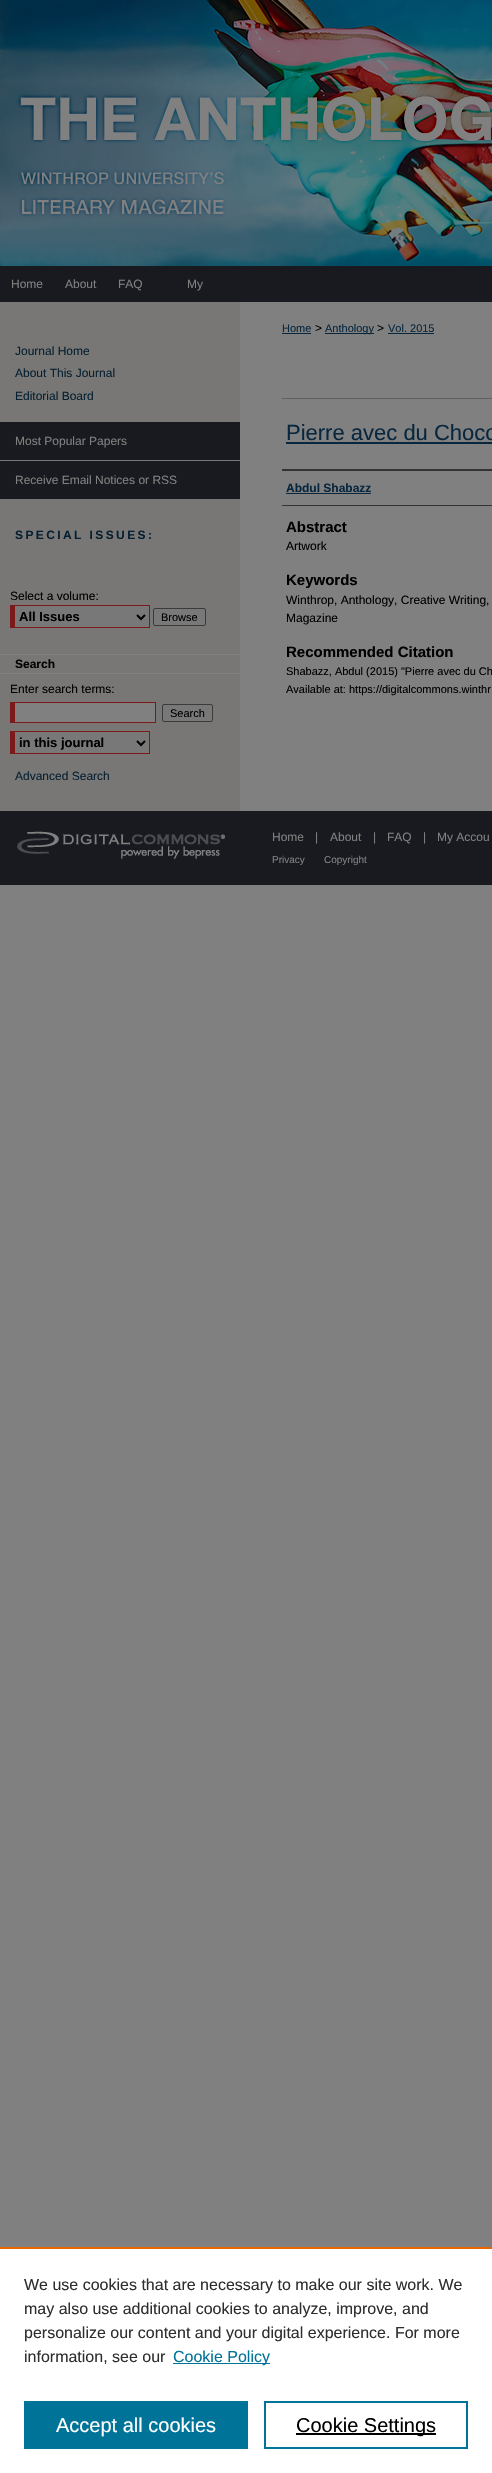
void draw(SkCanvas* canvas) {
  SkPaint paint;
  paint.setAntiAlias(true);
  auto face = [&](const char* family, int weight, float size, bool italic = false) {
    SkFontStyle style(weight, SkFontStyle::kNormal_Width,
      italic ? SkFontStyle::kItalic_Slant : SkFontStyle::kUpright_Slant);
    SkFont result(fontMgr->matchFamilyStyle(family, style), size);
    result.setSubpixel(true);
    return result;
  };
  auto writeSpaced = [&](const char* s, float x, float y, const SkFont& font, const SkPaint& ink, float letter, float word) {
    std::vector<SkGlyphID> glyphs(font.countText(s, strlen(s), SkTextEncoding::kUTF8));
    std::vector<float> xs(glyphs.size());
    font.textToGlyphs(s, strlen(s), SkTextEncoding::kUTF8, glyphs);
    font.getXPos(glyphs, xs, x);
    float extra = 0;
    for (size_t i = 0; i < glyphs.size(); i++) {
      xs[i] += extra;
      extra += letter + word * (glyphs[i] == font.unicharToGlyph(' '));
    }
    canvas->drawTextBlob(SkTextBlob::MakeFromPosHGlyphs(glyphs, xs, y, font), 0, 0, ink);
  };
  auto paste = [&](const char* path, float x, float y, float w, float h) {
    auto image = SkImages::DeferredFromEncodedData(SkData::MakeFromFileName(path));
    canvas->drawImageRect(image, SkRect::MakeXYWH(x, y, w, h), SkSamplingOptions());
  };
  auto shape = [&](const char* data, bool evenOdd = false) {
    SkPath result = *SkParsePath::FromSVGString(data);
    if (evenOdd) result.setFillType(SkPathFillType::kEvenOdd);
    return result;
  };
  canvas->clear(0xff808080);
  paste("img/1.png", 0, 0, 492, 266);
  {
    const struct { float x, y, w, h; SkColor color; } items[] = {
      {0, 266, 492, 36, 0xff191a20},
      {0, 302, 240, 509, 0xff787775},
      {0, 422, 240, 38, 0xff191a20},
      {0, 461, 240, 38, 0xff191a20},
      {15, 606, 134, 21, 0xff787878},
      {10, 605, 140, 1, 0xff7c191a},
      {149, 605, 1, 23, 0xff7c191a},
      {10, 627, 140, 1, 0xff7c191a},
      {10, 605, 5, 23, 0xff7c191a},
    };
    for (auto [x, y, w, h, color] : items) {
      paint.setColor(color);
      canvas->drawRect(SkRect::MakeXYWH(x, y, w, h), paint);
    }
  }
  paint.setStroke(true);
  paint.setStrokeWidth(2);
  paint.setColor(0xff000000);
  canvas->drawPath(shape("M137 615L141 619L145 615"), paint);
  paint.setStroke(false);
  paint.setColor(0xff787878);
  canvas->drawRoundRect(SkRect::MakeXYWH(153.5f, 608.5f, 52, 17), 1.5f, 1.5f, paint);
  paint.setStroke(true);
  paint.setStrokeWidth(1);
  paint.setColor(0xff3b3b3b);
  canvas->drawRoundRect(SkRect::MakeXYWH(153.5f, 608.5f, 52, 17), 1.5f, 1.5f, paint);
  paint.setStroke(false);
  {
    const struct { float x, y, w, h; SkColor color; } items[] = {
      {0, 654, 240, 1, 0xff808080},
      {0, 673, 240, 1, 0xff808080},
      {15, 703, 140, 19, 0xff808080},
      {10, 702, 146, 1, 0xff7c191a},
      {155, 702, 1, 21, 0xff7c191a},
      {10, 722, 146, 1, 0xff7c191a},
      {10, 702, 5, 21, 0xff7c191a},
    };
    for (auto [x, y, w, h, color] : items) {
      paint.setColor(color);
      canvas->drawRect(SkRect::MakeXYWH(x, y, w, h), paint);
    }
  }
  paint.setColor(0xff787878);
  canvas->drawRoundRect(SkRect::MakeXYWH(162.5f, 704.5f, 50, 17), 1.5f, 1.5f, paint);
  paint.setStroke(true);
  paint.setColor(0xff3b3b3b);
  canvas->drawRoundRect(SkRect::MakeXYWH(162.5f, 704.5f, 50, 17), 1.5f, 1.5f, paint);
  paint.setStroke(false);
  {
    const struct { float x, y, w, h; SkColor color; } items[] = {
      {15, 732, 134, 21, 0xff787878},
      {10, 731, 140, 1, 0xff7c191a},
      {149, 731, 1, 23, 0xff7c191a},
      {10, 753, 140, 1, 0xff7c191a},
      {10, 731, 5, 23, 0xff7c191a},
    };
    for (auto [x, y, w, h, color] : items) {
      paint.setColor(color);
      canvas->drawRect(SkRect::MakeXYWH(x, y, w, h), paint);
    }
  }
  paint.setStroke(true);
  paint.setStrokeWidth(2);
  paint.setColor(0xff000000);
  canvas->drawPath(shape("M137 741L141 745L145 741"), paint);
  paint.setStroke(false);
  {
    const struct { float x, y, w, h; SkColor color; } items[] = {
      {282, 333, 29, 1, 0xff08273e},
      {325, 333, 49, 1, 0xff08273e},
      {388, 333, 46, 1, 0xff08273e},
      {282, 398, 210, 1, 0xff606060},
      {286, 442, 206, 2, 0xff08273e},
      {282, 469, 210, 2, 0xff333333},
      {282, 505, 210, 1, 0xff333333},
      {286, 493, 85, 1, 0xff08273e},
      {0, 811, 492, 74, 0xff191a20},
    };
    for (auto [x, y, w, h, color] : items) {
      paint.setColor(color);
      canvas->drawRect(SkRect::MakeXYWH(x, y, w, h), paint);
    }
  }
  paste("img/2.png", 17, 831, 208, 28);
  {
    const struct { float x, y, w, h; SkColor color; } items[] = {
      {0, 2249, 492, 224, 0xffffffff},
      {0, 2247, 492, 2, 0xffeb6500},
      {173, 2363, 97, 1, 0xff007398},
      {24, 2401, 224, 48, 0xff007398},
    };
    for (auto [x, y, w, h, color] : items) {
      paint.setColor(color);
      canvas->drawRect(SkRect::MakeXYWH(x, y, w, h), paint);
    }
  }
  paint.setStroke(true);
  canvas->drawRect(SkRect::MakeXYWH(265, 2402, 202, 46), paint);
  paint.setStroke(false);
  paint.setColor(0xff000000);
  canvas->drawRect(SkRect::MakeXYWH(296, 2433, 140, 2), paint);
  auto f0 = face("Liberation Sans", 400, 12);
  paint.setColor(0xff808080);
  {
    const struct { const char* s; float x, y; } items[] = {
      {"Home", 11, 288},
      {"About", 65, 288},
      {"FAQ", 118, 288},
      {"My", 187, 288},
    };
    for (auto [s, x, y] : items) {
      canvas->drawString(s, x, y, f0, paint);
    }
  }
  paint.setColor(0xff072031);
  {
    const struct { const char* s; float x, y; } items[] = {
      {"Journal Home", 15, 355},
      {"About This Journal", 15, 377},
      {"Editorial Board", 15, 400},
    };
    for (auto [s, x, y] : items) {
      canvas->drawString(s, x, y, f0, paint);
    }
  }
  paint.setColor(0xff808080);
  canvas->drawString("Most Popular Papers", 15, 445, f0, paint);
  canvas->drawString("Receive Email Notices or RSS", 15, 484, f0, paint);
  auto f1 = face("Liberation Sans", 700, 12);
  paint.setColor(0xff072031);
  writeSpaced("SPECIAL ISSUES:", 15, 539, f1, paint, 2.4f, 0);
  paint.setColor(0xff000000);
  canvas->drawString("Select a volume:", 10, 600, f0, paint);
  auto f2 = face("Liberation Sans", 700, 13);
  canvas->drawString("All Issues", 19, 621, f2, paint);
  auto f3 = face("Liberation Sans", 400, 11);
  canvas->drawString("Browse", 161, 621, f3, paint);
  canvas->drawString("Search", 15, 668, f1, paint);
  canvas->drawString("Enter search terms:", 10, 693, f0, paint);
  canvas->drawString("Search", 170, 717, f3, paint);
  canvas->drawString("in this journal", 19, 747, f2, paint);
  paint.setColor(0xff072031);
  canvas->drawString("Advanced Search", 15, 780, f0, paint);
  paint.setColor(0xff08273e);
  canvas->drawString("Home", 282, 332, f3, paint);
  paint.setColor(0xff000000);
  canvas->drawString(">", 315, 332, f0, paint);
  paint.setColor(0xff08273e);
  canvas->drawString("Anthology", 325, 332, f3, paint);
  paint.setColor(0xff000000);
  canvas->drawString(">", 377, 332, f0, paint);
  paint.setColor(0xff08273e);
  canvas->drawString("Vol. 2015", 388, 332, f3, paint);
  auto f4 = face("Liberation Sans", 400, 22);
  canvas->drawString("Pierre avec du Choco", 286, 440, f4, paint);
  canvas->drawString("Abdul Shabazz", 286, 492, f1, paint);
  auto f5 = face("Liberation Sans", 700, 15);
  paint.setColor(0xff000000);
  canvas->drawString("Abstract", 286, 532, f5, paint);
  canvas->drawString("Artwork", 286, 550, f0, paint);
  canvas->drawString("Keywords", 286, 585, f5, paint);
  canvas->drawString("Winthrop, Anthology, Creative Writing,", 286, 604, f0, paint);
  canvas->drawString("Magazine", 286, 622, f0, paint);
  canvas->drawString("Recommended Citation", 286, 657, f5, paint);
  canvas->drawString("Shabazz, Abdul (2015) \"Pierre avec du Ch", 286, 675, f3, paint);
  canvas->drawString("Available at: https://digitalcommons.winthr", 286, 693, f3, paint);
  paint.setColor(0xff808080);
  {
    const struct { const char* s; float x, y; } items[] = {
      {"Home", 272, 841},
      {"|", 315, 841},
      {"About", 330, 841},
      {"|", 373, 841},
      {"FAQ", 387, 841},
      {"|", 423, 841},
      {"My Accou", 437, 841},
    };
    for (auto [s, x, y] : items) {
      canvas->drawString(s, x, y, f0, paint);
    }
  }
  auto f6 = face("Liberation Sans", 400, 10);
  canvas->drawString("Privacy", 272, 863, f6, paint);
  canvas->drawString("Copyright", 324, 863, f6, paint);
  auto f7 = face("Liberation Sans", 400, 16);
  paint.setColor(0xff2e2e2e);
  {
    const struct { const char* s; float x, y; } items[] = {
      {"We use cookies that are necessary to make our site work. We", 24, 2290},
      {"may also use additional cookies to analyze, improve, and", 24, 2314},
      {"personalize our content and your digital experience. For more", 24, 2338},
      {"information, see our", 24, 2362},
    };
    for (auto [s, x, y] : items) {
      canvas->drawString(s, x, y, f7, paint);
    }
  }
  paint.setColor(0xff007398);
  canvas->drawString("Cookie Policy", 173, 2362, f7, paint);
  auto f8 = face("Liberation Sans", 400, 20);
  paint.setColor(0xffffffff);
  canvas->drawString("Accept all cookies", 56, 2432, f8, paint);
  paint.setColor(0xff000000);
  canvas->drawString("Cookie Settings", 296, 2432, f8, paint);
}
